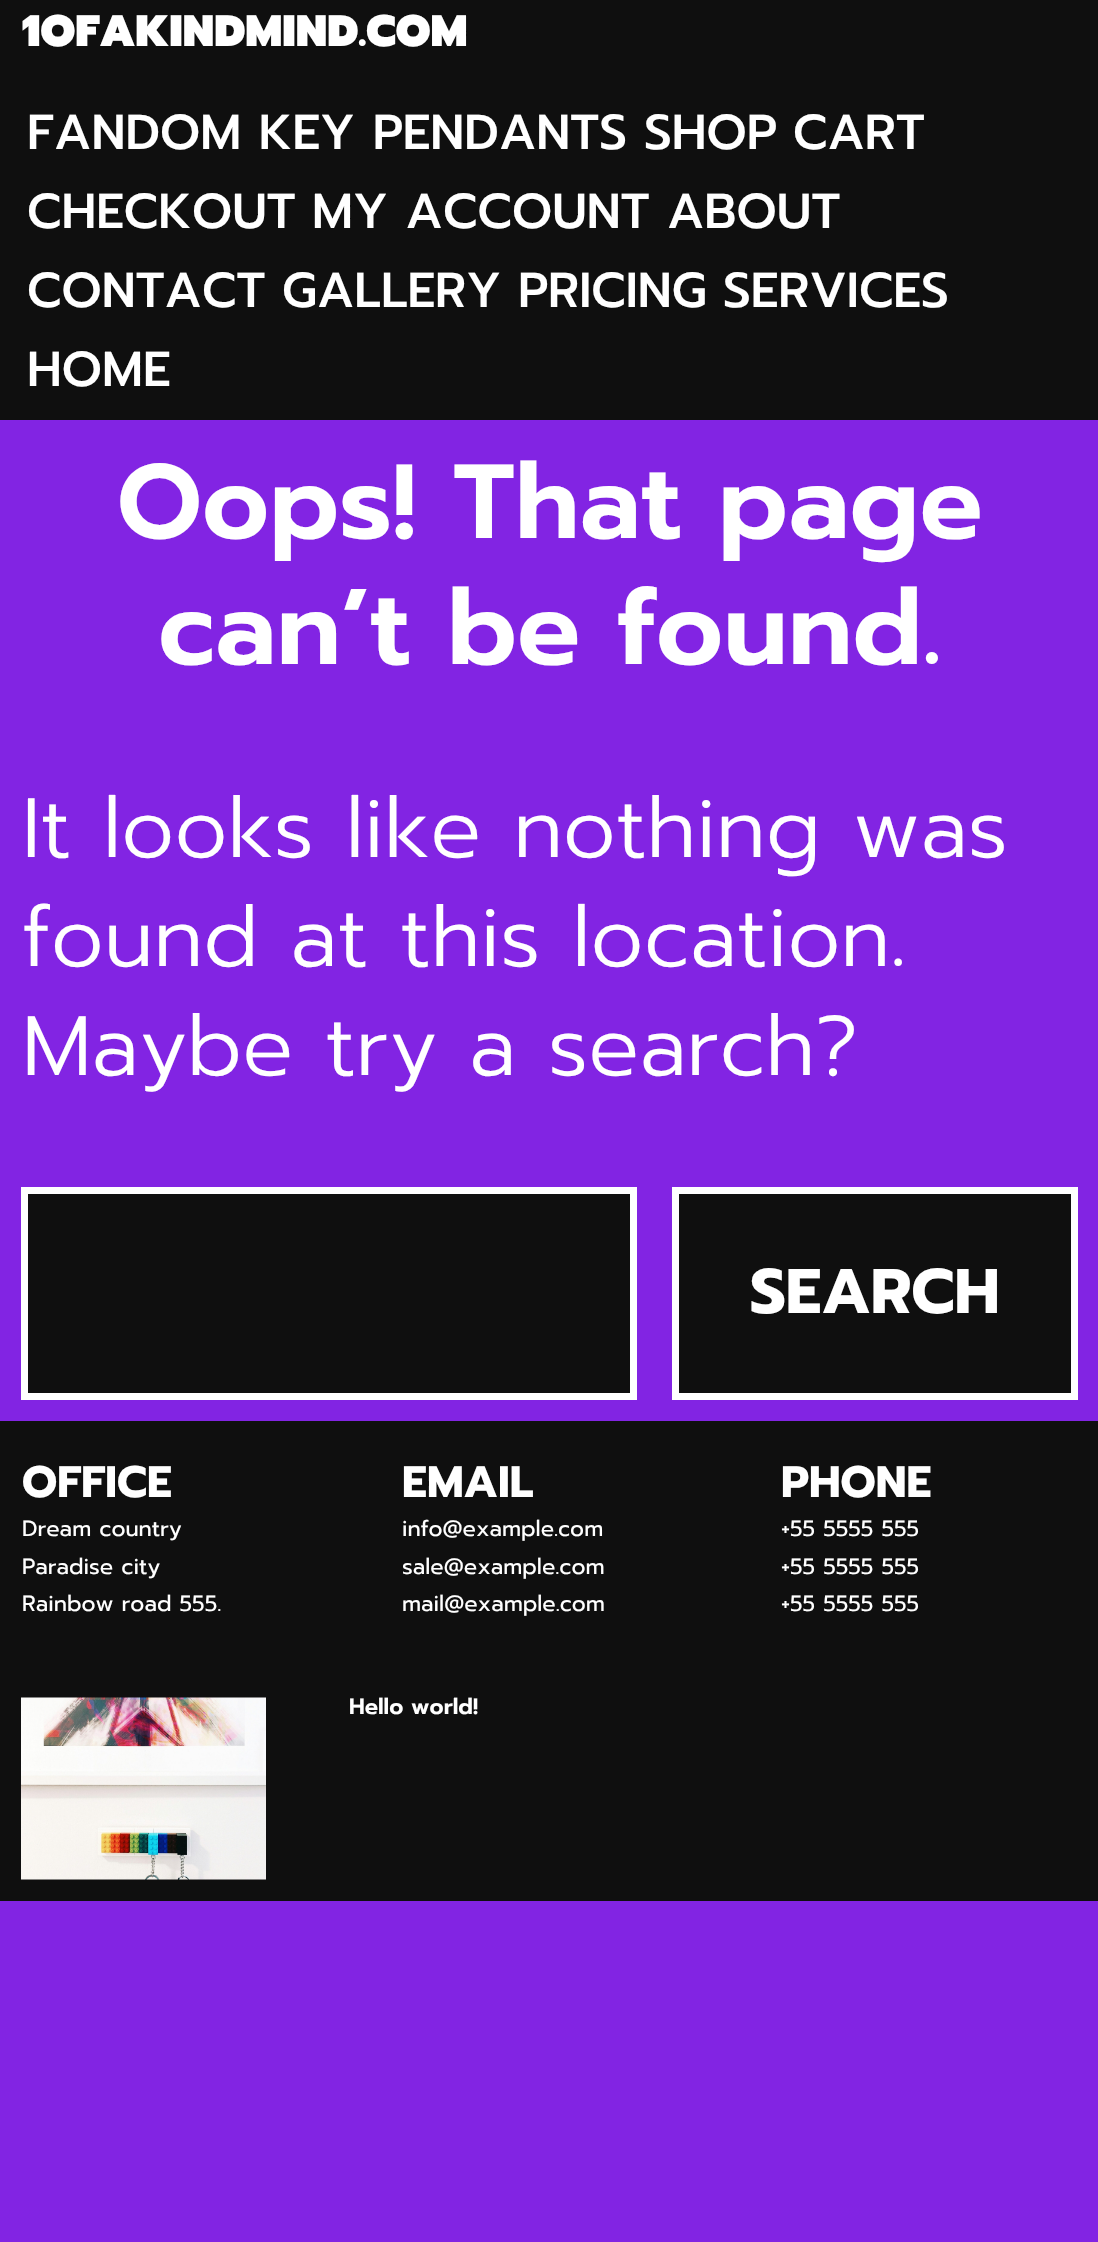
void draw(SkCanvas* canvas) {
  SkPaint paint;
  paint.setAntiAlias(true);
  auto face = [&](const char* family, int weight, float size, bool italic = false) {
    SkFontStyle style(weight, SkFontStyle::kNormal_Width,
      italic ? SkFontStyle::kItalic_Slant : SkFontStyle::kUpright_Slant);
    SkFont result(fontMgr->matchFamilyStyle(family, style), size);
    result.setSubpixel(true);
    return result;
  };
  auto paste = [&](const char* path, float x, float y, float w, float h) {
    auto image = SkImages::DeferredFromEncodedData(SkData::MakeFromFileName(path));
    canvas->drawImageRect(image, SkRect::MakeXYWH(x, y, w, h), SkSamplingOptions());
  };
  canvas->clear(0xff8224e3);
  paint.setColor(0xff0f0f0f);
  canvas->drawRect(SkRect::MakeXYWH(0, 0, 1098, 420), paint);
  canvas->drawRect(SkRect::MakeXYWH(24.5f, 1190.5f, 609, 206), paint);
  paint.setStroke(true);
  paint.setStrokeWidth(7);
  paint.setColor(0xffffffff);
  canvas->drawRect(SkRect::MakeXYWH(24.5f, 1190.5f, 609, 206), paint);
  paint.setStroke(false);
  paint.setColor(0xff0f0f0f);
  canvas->drawRect(SkRect::MakeXYWH(675.5f, 1190.5f, 399, 206), paint);
  paint.setStroke(true);
  paint.setColor(0xffffffff);
  canvas->drawRect(SkRect::MakeXYWH(675.5f, 1190.5f, 399, 206), paint);
  paint.setStroke(false);
  paint.setColor(0xff0f0f0f);
  canvas->drawRect(SkRect::MakeXYWH(0, 1421, 1098, 480), paint);
  paste("img/1.png", 21, 1697, 245, 183);
  auto f0 = face("Prompt", 900, 44);
  paint.setColor(0xffffffff);
  canvas->drawString("1OFAKINDMIND.COM", 22, 46, f0, paint);
  auto f1 = face("Prompt", 500, 49);
  {
    const struct { const char* s; float x, y; } items[] = {
      {"FANDOM KEY PENDANTS", 27, 149},
      {"SHOP", 644, 149},
      {"CART", 793, 149},
      {"CHECKOUT", 27, 228},
      {"MY ACCOUNT", 312, 228},
      {"ABOUT", 667, 228},
      {"CONTACT", 27, 307},
      {"GALLERY", 282, 307},
      {"PRICING", 518, 307},
      {"SERVICES", 723, 307},
      {"HOME", 27, 386},
    };
    for (auto [s, x, y] : items) {
      canvas->drawString(s, x, y, f1, paint);
    }
  }
  auto f2 = face("Prompt", 600, 105);
  canvas->drawString("Oops! That page", 117, 538, f2, paint);
  canvas->drawString("can’t be found.", 158, 664, f2, paint);
  auto f3 = face("Prompt", 300, 84);
  {
    const struct { const char* s; float x, y; } items[] = {
      {"It looks like nothing was", 22, 857},
      {"found at this location.", 22, 966},
      {"Maybe try a search?", 22, 1075},
    };
    for (auto [s, x, y] : items) {
      canvas->drawString(s, x, y, f3, paint);
    }
  }
  auto f4 = face("Prompt", 700, 63);
  canvas->drawString("SEARCH", 750, 1313, f4, paint);
  auto f5 = face("Prompt", 700, 44);
  canvas->drawString("OFFICE", 22, 1497, f5, paint);
  auto f6 = face("Prompt", 400, 22);
  {
    const struct { const char* s; float x, y; } items[] = {
      {"Dream country", 22, 1536},
      {"Paradise city", 22, 1574},
      {"Rainbow road 555.", 22, 1611},
    };
    for (auto [s, x, y] : items) {
      canvas->drawString(s, x, y, f6, paint);
    }
  }
  canvas->drawString("EMAIL", 402, 1497, f5, paint);
  {
    const struct { const char* s; float x, y; } items[] = {
      {"info@example.com", 402, 1536},
      {"sale@example.com", 402, 1574},
      {"mail@example.com", 402, 1611},
    };
    for (auto [s, x, y] : items) {
      canvas->drawString(s, x, y, f6, paint);
    }
  }
  canvas->drawString("PHONE", 781, 1497, f5, paint);
  {
    const struct { const char* s; float x, y; } items[] = {
      {"+55 5555 555", 781, 1536},
      {"+55 5555 555", 781, 1574},
      {"+55 5555 555", 781, 1611},
    };
    for (auto [s, x, y] : items) {
      canvas->drawString(s, x, y, f6, paint);
    }
  }
  auto f7 = face("Prompt", 600, 22);
  canvas->drawString("Hello world!", 349, 1714, f7, paint);
}
